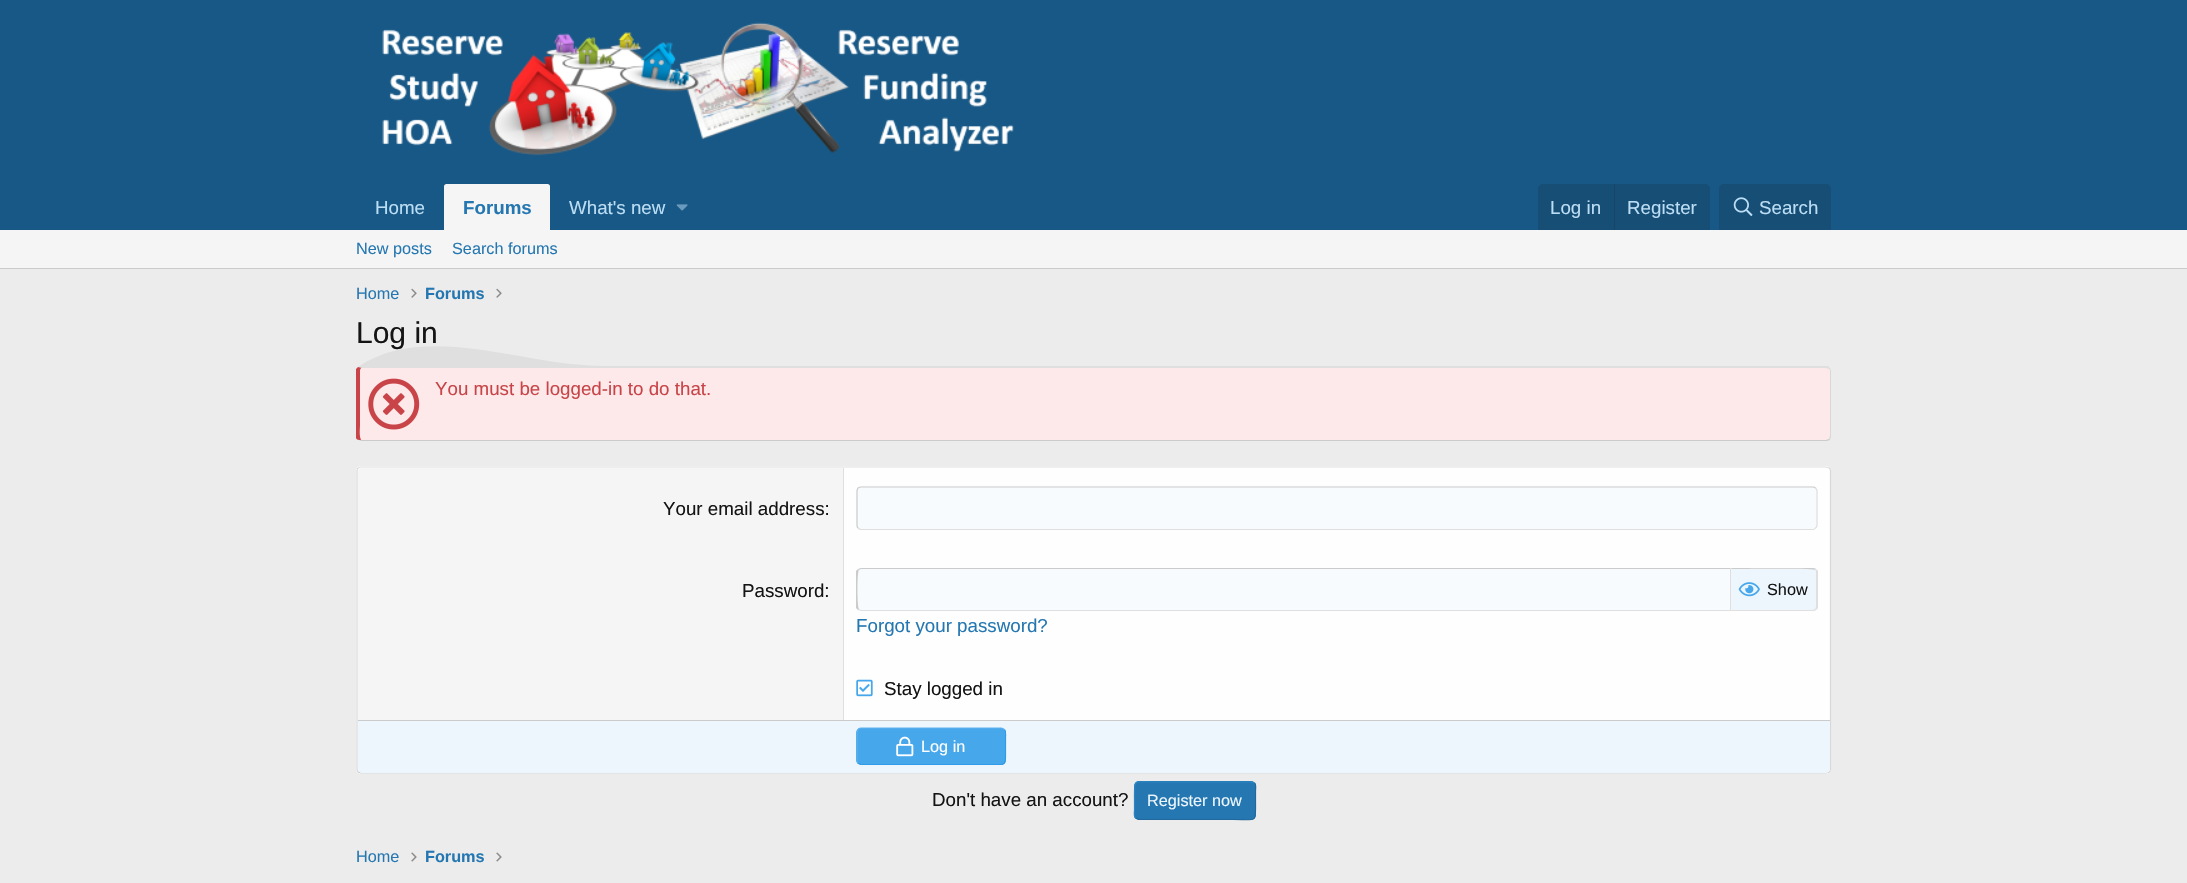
void draw(SkCanvas* canvas) {
  SkPaint paint;
  paint.setAntiAlias(true);
  auto face = [&](const char* family, int weight, float size, bool italic = false) {
    SkFontStyle style(weight, SkFontStyle::kNormal_Width,
      italic ? SkFontStyle::kItalic_Slant : SkFontStyle::kUpright_Slant);
    SkFont result(fontMgr->matchFamilyStyle(family, style), size);
    result.setSubpixel(true);
    return result;
  };
  auto paste = [&](const char* path, float x, float y, float w, float h) {
    auto image = SkImages::DeferredFromEncodedData(SkData::MakeFromFileName(path));
    canvas->drawImageRect(image, SkRect::MakeXYWH(x, y, w, h), SkSamplingOptions());
  };
  auto shape = [&](const char* data, bool evenOdd = false) {
    SkPath result = *SkParsePath::FromSVGString(data);
    if (evenOdd) result.setFillType(SkPathFillType::kEvenOdd);
    return result;
  };
  canvas->clear(0xffececec);
  paint.setColor(0xff185886);
  canvas->drawRect(SkRect::MakeXYWH(0, 0, 2187, 230), paint);
  paste("img/1.png", 382, 22, 632, 134);
  paint.setColor(0xfff5f5f5);
  canvas->drawPath(shape("M446.5 184H547.5C549 184 550 185 550 186.5V230H444V186.5C444 185 445 184 446.5 184Z"), paint);
  paste("img/2.png", 676, 204, 12, 7);
  paint.setColor(0xff174e75);
  canvas->drawPath(shape("M1543 184H1705C1708 184 1710 186 1710 189V230H1538V189C1538 186 1540 184 1543 184Z"), paint);
  paint.setColor(0xff174566);
  canvas->drawRect(SkRect::MakeXYWH(1614, 184, 1, 46), paint);
  paint.setColor(0xff174e75);
  canvas->drawPath(shape("M1724 184H1826C1829 184 1831 186 1831 189V230H1719V189C1719 186 1721 184 1724 184Z"), paint);
  paste("img/3.png", 1733, 197, 20, 19);
  paint.setColor(0xfff5f5f5);
  canvas->drawRect(SkRect::MakeXYWH(0, 230, 2187, 38), paint);
  paint.setColor(0xffcbcbcb);
  canvas->drawRect(SkRect::MakeXYWH(0, 268, 2187, 1), paint);
  paste("img/4.png", 411, 288, 6, 10);
  paste("img/4.png", 496, 288, 6, 10);
  paint.setColor(0xfffde9e9);
  canvas->drawPath(shape("M361 368H1826C1828 368 1830 369 1830 371V436C1830 438 1828 440 1826 440H361C361 440 360 438 360 436V371C360 369 361 368 361 368Z"), paint);
  paste("img/5.png", 368, 378, 52, 52);
  paint.setColor(0xfffefefe);
  canvas->drawRoundRect(SkRect::MakeXYWH(356, 466, 1475, 308), 5, 5, paint);
  paint.setStroke(true);
  paint.setStrokeWidth(1.2f);
  paint.setColor(0xffdfdfdf);
  canvas->drawPath(shape("M358 468L361 467H1826L1829.5 468"), paint);
  paint.setColor(0xffd8d8d8);
  canvas->drawPath(shape("M1829.5 468C1830 469 1830.5 470 1830.5 471V769C1830.5 770 1830 771 1829.5 772"), paint);
  paint.setColor(0xffcbcbcb);
  canvas->drawPath(shape("M1829.5 772L1826 773H361L358 772"), paint);
  paint.setColor(0xffd8d8d8);
  canvas->drawPath(shape("M358 772C357.5 771 357 770 357 769V471C357 470 357.5 469 358 468"), paint);
  paint.setStroke(false);
  paint.setColor(0xfff5f5f5);
  canvas->drawPath(shape("M362 468H844V549H358V472C358 470 360 468 362 468Z"), paint);
  paint.setColor(0xffdfdfdf);
  canvas->drawRect(SkRect::MakeXYWH(843, 468, 1, 252), paint);
  paint.setColor(0xfff7fbfe);
  canvas->drawRoundRect(SkRect::MakeXYWH(856, 486, 962, 44), 5, 5, paint);
  paint.setStroke(true);
  paint.setColor(0xffdfdfdf);
  canvas->drawPath(shape("M1815.5 488C1816.5 489 1817 490 1817 491V525C1817 526 1816.5 527.5 1815.5 528C1815 529 1813.5 529.5 1812.5 529.5H861C860 529.5 859 529 858 528"), paint);
  paint.setColor(0xffcbcbcb);
  canvas->drawPath(shape("M858 528C857.5 527.5 857 526 857 525V491C857 490 857.5 489 858 488C859 487.5 860 487 861 487H1812.5C1813.5 487 1815 487.5 1815.5 488"), paint);
  paint.setStroke(false);
  paint.setColor(0xfff5f5f5);
  canvas->drawRect(SkRect::MakeXYWH(358, 549, 485, 171), paint);
  paint.setColor(0xfff7fbfe);
  canvas->drawPath(shape("M861 568H1730V611H861C858 611 856 609 856 606V573C856 570 858 568 861 568Z"), paint);
  paint.setColor(0xffcbcbcb);
  canvas->drawPath(shape("M861 568H1730V569H861L859 570L858 569Z"), paint);
  paint.setColor(0xffdfdfdf);
  canvas->drawPath(shape("M1730 611V610H861L859 609L858 610L861 611Z"), paint);
  paint.setColor(0xffcbcbcb);
  canvas->drawPath(shape("M859 609L858 610L856 608V571L858 569L859 570C857 571 857 606 859 609Z"), paint);
  paint.setColor(0xffedf6fd);
  canvas->drawPath(shape("M1730 568H1813C1816 568 1818 570 1818 573V606C1818 609 1816 611 1813 611H1730Z"), paint);
  paint.setColor(0xffcbcbcb);
  canvas->drawPath(shape("M1816 569C1815 568 1813 568 1812 568H1730L1732 569C1741 569 1813 568 1815 570Z"), paint);
  paint.setColor(0xffdfdfdf);
  canvas->drawPath(shape("M1818 608L1816 610L1815 609C1816 608 1816 607 1816 606V572C1816 571 1816 570 1815 570L1816 569L1818 571Z"), paint);
  canvas->drawPath(shape("M1816 610C1815 611 1813 611 1812 611H1730L1731 610H1813L1815 609Z"), paint);
  canvas->drawPath(shape("M1731 569V610L1730 611V568L1732 569Z"), paint);
  paste("img/6.png", 1738, 582, 22, 15);
  paste("img/7.png", 856, 679, 17, 18);
  paint.setColor(0xffedf6fd);
  canvas->drawPath(shape("M358 720H1830V769C1830 771 1828 773 1826 773H362C360 773 358 771 358 769Z"), paint);
  paint.setColor(0xffcbcbcb);
  canvas->drawRect(SkRect::MakeXYWH(358, 720, 1472, 1), paint);
  paint.setColor(0xff47a7eb);
  canvas->drawRoundRect(SkRect::MakeXYWH(856, 728, 150, 37), 5, 5, paint);
  paint.setStroke(true);
  paint.setColor(0xff309ce8);
  canvas->drawPath(shape("M1004.5 729.5C1006.5 731.5 1005.5 734.5 1005.5 737V755.5C1005.5 759 1006 764.5 1001 764.5H861L858 763"), paint);
  paint.setColor(0xff5eb2ed);
  canvas->drawPath(shape("M858 763C856 761 857 758 857 755.5V737C857 733.5 856.5 728 861 728H1001.5L1004.5 729.5"), paint);
  paste("img/8.png", 896, 736, 18, 21);
  paint.setStroke(false);
  paint.setColor(0xff2577b1);
  canvas->drawRoundRect(SkRect::MakeXYWH(1134, 781, 122, 39), 5, 5, paint);
  paint.setStroke(true);
  paint.setColor(0xff21699c);
  canvas->drawPath(shape("M1254.5 783C1256.5 785 1255.5 788.5 1255.5 791V800.5C1255.5 824 1258 819.5 1232.5 819.5H1139L1135.5 818"), paint);
  paint.setColor(0xff2985c6);
  canvas->drawPath(shape("M1135.5 818C1133.5 816 1134.5 812.5 1134.5 810V800.5C1134.5 777.5 1132 782 1157.5 782H1251L1254.5 783"), paint);
  paste("img/9.png", 411, 852, 6, 10);
  paste("img/9.png", 496, 852, 6, 10);
  auto f0 = face("Liberation Sans", 400, 18.75f);
  paint.setStroke(false);
  paint.setColor(0xffbcdef5);
  canvas->drawString("Home", 375, 214, f0, paint);
  auto f1 = face("Liberation Sans", 700, 18.75f);
  paint.setColor(0xff2577b1);
  canvas->drawString("Forums", 463, 214, f1, paint);
  paint.setColor(0xffbcdef5);
  {
    const struct { const char* s; float x, y; } items[] = {
      {"What's new", 569, 214},
      {"Log in", 1550, 214},
      {"Register", 1627, 214},
      {"Search", 1759, 214},
    };
    for (auto [s, x, y] : items) {
      canvas->drawString(s, x, y, f0, paint);
    }
  }
  auto f2 = face("Liberation Sans", 400, 16.25f);
  paint.setColor(0xff2577b1);
  {
    const struct { const char* s; float x, y; } items[] = {
      {"New posts", 356, 254},
      {"Search forums", 452, 254},
      {"Home", 356, 299},
    };
    for (auto [s, x, y] : items) {
      canvas->drawString(s, x, y, f2, paint);
    }
  }
  auto f3 = face("Liberation Sans", 700, 16.25f);
  canvas->drawString("Forums", 425, 299, f3, paint);
  auto f4 = face("Liberation Sans", 400, 30);
  paint.setColor(0xff141414);
  canvas->drawString("Log in", 356, 343, f4, paint);
  paint.setColor(0xffdfdfdf);
  canvas->drawPath(shape("M358 367C426 321 522 366 604 366H1828L1830 368L1829 369L1826 368H362Z"), paint);
  paint.setColor(0xffd8d8d8);
  canvas->drawPath(shape("M1830 368L1831 371V437L1830 440L1829 439L1830 436V370L1829 369Z"), paint);
  paint.setColor(0xffcbcbcb);
  canvas->drawPath(shape("M1830 440C1829 440 1828 441 1826 441H361L359 440H361H1826L1829 439Z"), paint);
  paint.setColor(0xffc84448);
  canvas->drawPath(shape("M361 368L360 370V425C360 429 359 435 361 440H359C358 440 356 439 356 438V369L358 367L362 368Z"), paint);
  canvas->drawString("You must be logged-in to do that.", 435, 395, f0, paint);
  paint.setColor(0xff141414);
  canvas->drawString("Your email address:", 663, 515, f0, paint);
  canvas->drawString("Password:", 742, 597, f0, paint);
  canvas->drawString("Show", 1767, 595, f2, paint);
  paint.setColor(0xff2577b1);
  canvas->drawString("Forgot your password?", 856, 632, f0, paint);
  paint.setColor(0xff141414);
  canvas->drawString("Stay logged in", 884, 695, f0, paint);
  paint.setColor(0xffffffff);
  canvas->drawString("Log in", 921, 752, f2, paint);
  paint.setColor(0xff141414);
  canvas->drawString("Don't have an account?", 932, 806, f0, paint);
  paint.setColor(0xffedf6fd);
  canvas->drawString("Register now", 1147, 806, f2, paint);
  paint.setColor(0xff2577b1);
  canvas->drawString("Home", 356, 862, f2, paint);
  canvas->drawString("Forums", 425, 862, f3, paint);
}
